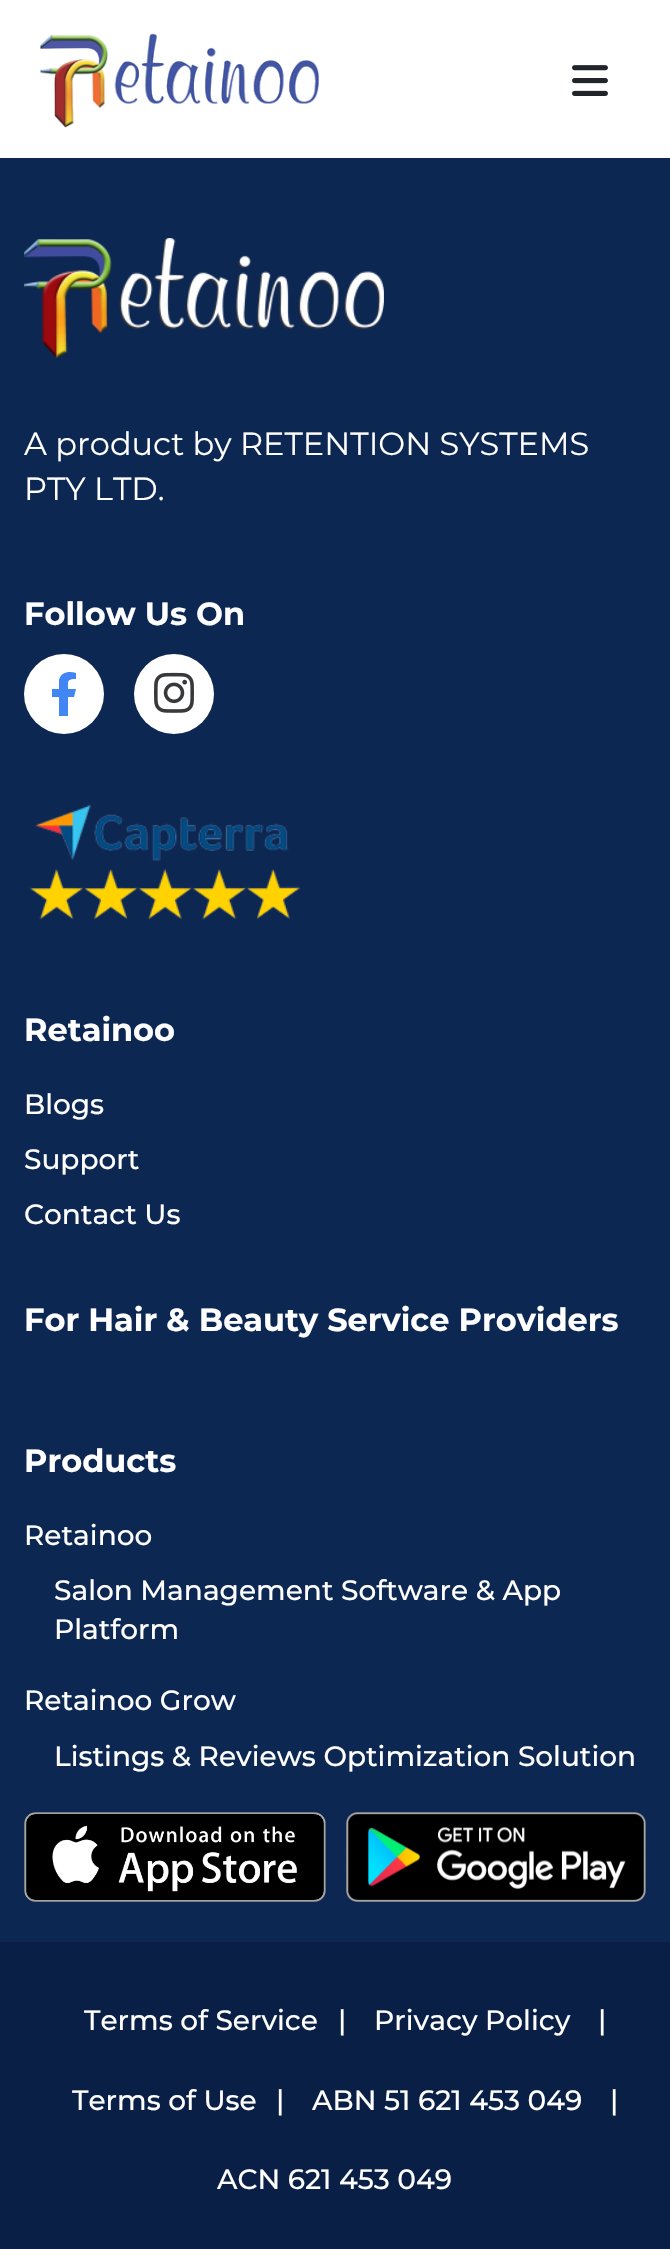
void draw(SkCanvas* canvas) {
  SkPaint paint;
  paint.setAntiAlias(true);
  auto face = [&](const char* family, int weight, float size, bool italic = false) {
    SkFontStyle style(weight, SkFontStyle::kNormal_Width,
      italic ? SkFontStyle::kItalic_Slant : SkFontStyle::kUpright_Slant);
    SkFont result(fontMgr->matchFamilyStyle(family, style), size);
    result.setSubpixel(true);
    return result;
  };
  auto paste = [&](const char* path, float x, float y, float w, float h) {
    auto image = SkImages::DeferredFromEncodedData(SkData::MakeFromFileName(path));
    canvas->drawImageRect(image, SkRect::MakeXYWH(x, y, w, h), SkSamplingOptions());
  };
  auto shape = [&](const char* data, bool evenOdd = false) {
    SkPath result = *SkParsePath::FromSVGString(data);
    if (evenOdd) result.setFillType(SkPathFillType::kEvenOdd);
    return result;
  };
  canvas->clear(0xffffffff);
  paste("img/1.png", 40, 33, 280, 95);
  paste("img/2.png", 572, 65, 36, 31);
  paint.setColor(0xff0d2753);
  canvas->drawRect(SkRect::MakeXYWH(0, 158, 670, 1784), paint);
  paste("img/3.png", 24, 238, 360, 120);
  paint.setColor(0xffffffff);
  canvas->drawCircle(64, 694, 40, paint);
  canvas->save();
  canvas->clipRect(SkRect::MakeXYWH(50, 672, 28, 44));
  paint.setColor(0xff4285f4);
  canvas->drawPath(shape("M74 697L76 689H68C68 681 67 679 76 679V673C69 671 61 672 59 680V689H52V697H59V717H68V697Z"), paint);
  canvas->restore();
  paint.setColor(0xffffffff);
  canvas->drawCircle(174, 694, 40, paint);
  paste("img/4.png", 154, 672, 40, 41);
  paste("img/5.png", 29, 804, 272, 116);
  paste("img/6.png", 24, 1812, 302, 90);
  paste("img/7.png", 346, 1812, 300, 90);
  paint.setColor(0xff0a1f45);
  canvas->drawRect(SkRect::MakeXYWH(0, 1942, 670, 307), paint);
  auto f0 = face("Montserrat", 400, 32);
  paint.setColor(0xffffffff);
  canvas->drawString("A product by RETENTION SYSTEMS", 24, 455, f0, paint);
  canvas->drawString("PTY LTD.", 24, 500, f0, paint);
  auto f1 = face("Montserrat", 700, 32);
  canvas->drawString("Follow Us On", 24, 625, f1, paint);
  canvas->drawString("Retainoo", 24, 1041, f1, paint);
  auto f2 = face("Montserrat", 500, 28);
  {
    const struct { const char* s; float x, y; } items[] = {
      {"Blogs", 24, 1114},
      {"Support", 24, 1169},
      {"Contact Us", 24, 1224},
    };
    for (auto [s, x, y] : items) {
      canvas->drawString(s, x, y, f2, paint);
    }
  }
  canvas->drawString("For Hair & Beauty Service Providers", 24, 1331, f1, paint);
  canvas->drawString("Products", 24, 1472, f1, paint);
  {
    const struct { const char* s; float x, y; } items[] = {
      {"Retainoo", 24, 1545},
      {"Salon Management Software & App", 54, 1600},
      {"Platform", 54, 1639},
      {"Retainoo Grow", 24, 1710},
      {"Listings & Reviews Optimization Solution", 54, 1766},
      {"Terms of Service", 84, 2030},
      {"|", 338, 2030},
      {"Privacy Policy", 374, 2030},
      {"|", 598, 2030},
      {"Terms of Use", 72, 2110},
      {"|", 276, 2110},
      {"ABN 51 621 453 049", 312, 2110},
      {"|", 610, 2110},
      {"ACN 621 453 049", 217, 2189},
    };
    for (auto [s, x, y] : items) {
      canvas->drawString(s, x, y, f2, paint);
    }
  }
}
